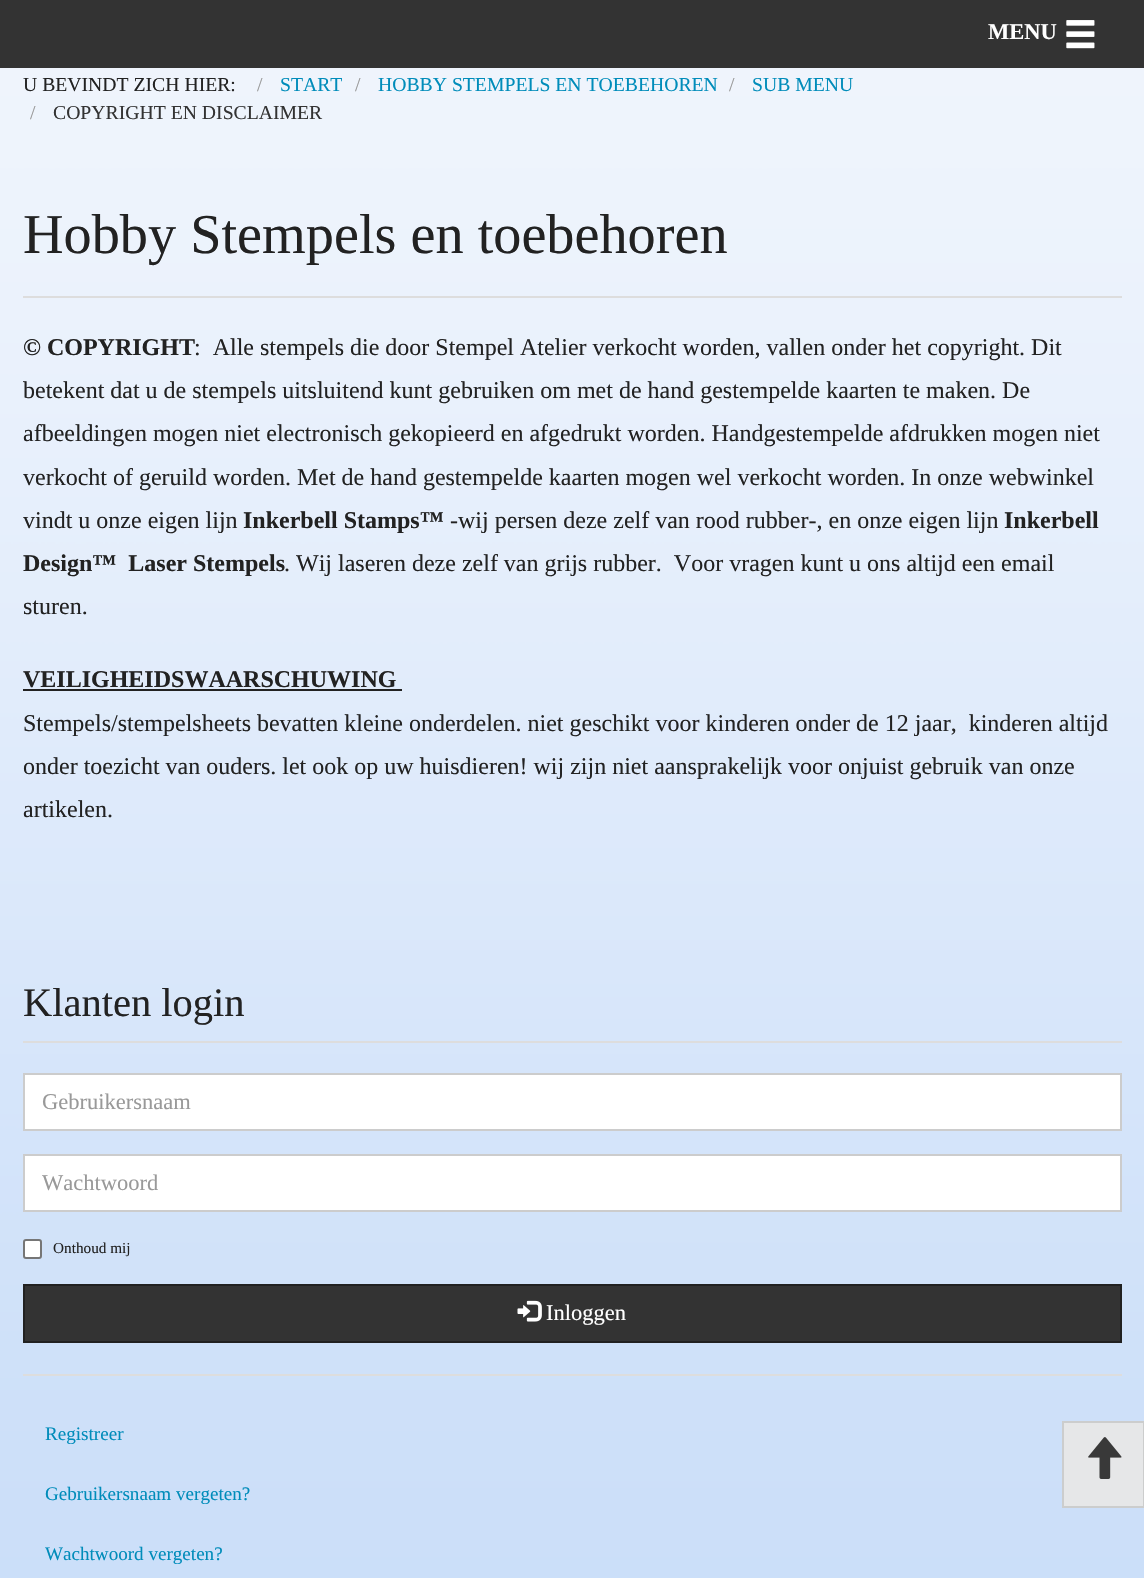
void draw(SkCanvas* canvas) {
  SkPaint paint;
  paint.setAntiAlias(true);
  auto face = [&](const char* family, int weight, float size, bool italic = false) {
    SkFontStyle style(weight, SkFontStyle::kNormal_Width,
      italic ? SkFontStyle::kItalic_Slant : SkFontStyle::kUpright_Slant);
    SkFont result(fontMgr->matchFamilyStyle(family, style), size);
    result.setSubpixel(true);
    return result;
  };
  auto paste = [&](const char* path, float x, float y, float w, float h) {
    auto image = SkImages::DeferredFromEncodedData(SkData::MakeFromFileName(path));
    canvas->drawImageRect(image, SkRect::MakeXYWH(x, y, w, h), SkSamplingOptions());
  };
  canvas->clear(0xffffffff);
  paste("img/1.png", 0, 68, 1144, 1510);
  paint.setColor(0xff333333);
  canvas->drawRect(SkRect::MakeXYWH(0, 0, 1144, 68), paint);
  paste("img/2.png", 1066, 20, 29, 29);
  {
    const struct { float x, y, w, h; SkColor color; } items[] = {
      {23, 296, 1099, 2, 0xffdddddd},
      {23, 689, 379, 2, 0xff222222},
      {23, 1041, 1099, 2, 0xffdddddd},
    };
    for (auto [x, y, w, h, color] : items) {
      paint.setColor(color);
      canvas->drawRect(SkRect::MakeXYWH(x, y, w, h), paint);
    }
  }
  paint.setColor(0xffffffff);
  canvas->drawRect(SkRect::MakeXYWH(24, 1074, 1097, 56), paint);
  paint.setStroke(true);
  paint.setStrokeWidth(2);
  paint.setColor(0xffcccccc);
  canvas->drawRect(SkRect::MakeXYWH(24, 1074, 1097, 56), paint);
  paint.setStroke(false);
  paint.setColor(0xffffffff);
  canvas->drawRect(SkRect::MakeXYWH(24, 1155, 1097, 56), paint);
  paint.setStroke(true);
  paint.setColor(0xffcccccc);
  canvas->drawRect(SkRect::MakeXYWH(24, 1155, 1097, 56), paint);
  paint.setStroke(false);
  paint.setColor(0xffffffff);
  canvas->drawRoundRect(SkRect::MakeXYWH(24, 1240, 17, 18), 2, 2, paint);
  paint.setStroke(true);
  paint.setColor(0xff767676);
  canvas->drawRoundRect(SkRect::MakeXYWH(24, 1240, 17, 18), 2, 2, paint);
  paint.setStroke(false);
  paint.setColor(0xff333333);
  canvas->drawRect(SkRect::MakeXYWH(24, 1285, 1097, 57), paint);
  paint.setStroke(true);
  paint.setColor(0xff212121);
  canvas->drawRect(SkRect::MakeXYWH(24, 1285, 1097, 57), paint);
  paste("img/3.png", 517, 1300, 25, 22);
  paint.setStroke(false);
  paint.setColor(0xffdddddd);
  canvas->drawRect(SkRect::MakeXYWH(23, 1374, 1099, 2), paint);
  paint.setColor(0xffe6e7e8);
  canvas->drawRect(SkRect::MakeXYWH(1063, 1422, 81, 85), paint);
  paint.setStroke(true);
  paint.setColor(0xffcccdcd);
  canvas->drawRect(SkRect::MakeXYWH(1063, 1422, 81, 85), paint);
  paste("img/4.png", 1088, 1437, 34, 42);
  auto f0 = face("Liberation Serif", 700, 22.5f);
  paint.setStroke(false);
  paint.setColor(0xffffffff);
  canvas->drawString("MENU", 988, 39, f0, paint);
  auto f1 = face("Liberation Serif", 400, 19.7f);
  paint.setColor(0xff222222);
  canvas->drawString("U BEVINDT ZICH HIER:", 23, 91, f1, paint);
  paint.setColor(0xff999999);
  canvas->drawString("/", 257, 91, f1, paint);
  paint.setColor(0xff008cba);
  canvas->drawString("START", 280, 91, f1, paint);
  paint.setColor(0xff999999);
  canvas->drawString("/", 355, 91, f1, paint);
  paint.setColor(0xff008cba);
  canvas->drawString("HOBBY STEMPELS EN TOEBEHOREN", 378, 91, f1, paint);
  paint.setColor(0xff999999);
  canvas->drawString("/", 729, 91, f1, paint);
  paint.setColor(0xff008cba);
  canvas->drawString("SUB MENU", 752, 91, f1, paint);
  paint.setColor(0xff999999);
  canvas->drawString("/", 30, 119, f1, paint);
  paint.setColor(0xff333333);
  canvas->drawString("COPYRIGHT EN DISCLAIMER", 53, 119, f1, paint);
  auto f2 = face("Liberation Serif", 400, 56.25f);
  paint.setColor(0xff222222);
  canvas->drawString("Hobby Stempels en toebehoren", 23, 253, f2, paint);
  auto f3 = face("Liberation Serif", 700, 24);
  canvas->drawString("© COPYRIGHT", 23, 355, f3, paint);
  auto f4 = face("Liberation Serif", 400, 24);
  {
    const struct { const char* s; float x, y; } items[] = {
      {":  Alle stempels die door Stempel Atelier verkocht worden, vallen onder het copyright. Dit", 194, 355},
      {"betekent dat u de stempels uitsluitend kunt gebruiken om met de hand gestempelde kaarten te maken. De", 23, 398},
      {"afbeeldingen mogen niet electronisch gekopieerd en afgedrukt worden. Handgestempelde afdrukken mogen niet", 23, 441},
      {"verkocht of geruild worden. Met de hand gestempelde kaarten mogen wel verkocht worden. In onze webwinkel", 23, 485},
      {"vindt u onze eigen lijn", 23, 528},
    };
    for (auto [s, x, y] : items) {
      canvas->drawString(s, x, y, f4, paint);
    }
  }
  canvas->drawString("Inkerbell Stamps™", 243, 528, f3, paint);
  canvas->drawString("-wij persen deze zelf van rood rubber-, en onze eigen lijn", 450, 528, f4, paint);
  canvas->drawString("Inkerbell", 1004, 528, f3, paint);
  canvas->drawString("Design™  Laser Stempels", 23, 571, f3, paint);
  canvas->drawString(". Wij laseren deze zelf van grijs rubber.  Voor vragen kunt u ons altijd een email", 284, 571, f4, paint);
  canvas->drawString("sturen.", 23, 614, f4, paint);
  canvas->drawString("VEILIGHEIDSWAARSCHUWING", 23, 687, f3, paint);
  {
    const struct { const char* s; float x, y; } items[] = {
      {"Stempels/stempelsheets bevatten kleine onderdelen. niet geschikt voor kinderen onder de 12 jaar,  kinderen altijd", 23, 731},
      {"onder toezicht van ouders. let ook op uw huisdieren! wij zijn niet aansprakelijk voor onjuist gebruik van onze", 23, 774},
      {"artikelen.", 23, 817},
    };
    for (auto [s, x, y] : items) {
      canvas->drawString(s, x, y, f4, paint);
    }
  }
  auto f5 = face("Liberation Serif", 400, 40.5f);
  canvas->drawString("Klanten login", 23, 1016, f5, paint);
  auto f6 = face("Liberation Serif", 400, 22.5f);
  paint.setColor(0xff999999);
  canvas->drawString("Gebruikersnaam", 42, 1109, f6, paint);
  canvas->drawString("Wachtwoord", 42, 1190, f6, paint);
  auto f7 = face("Liberation Serif", 400, 15.25f);
  paint.setColor(0xff222222);
  canvas->drawString("Onthoud mij", 53, 1253, f7, paint);
  paint.setColor(0xffffffff);
  canvas->drawString("Inloggen", 546, 1320, f6, paint);
  auto f8 = face("Liberation Serif", 400, 19.1f);
  paint.setColor(0xff008cba);
  {
    const struct { const char* s; float x, y; } items[] = {
      {"Registreer", 45, 1440},
      {"Gebruikersnaam vergeten?", 45, 1500},
      {"Wachtwoord vergeten?", 45, 1560},
    };
    for (auto [s, x, y] : items) {
      canvas->drawString(s, x, y, f8, paint);
    }
  }
}
